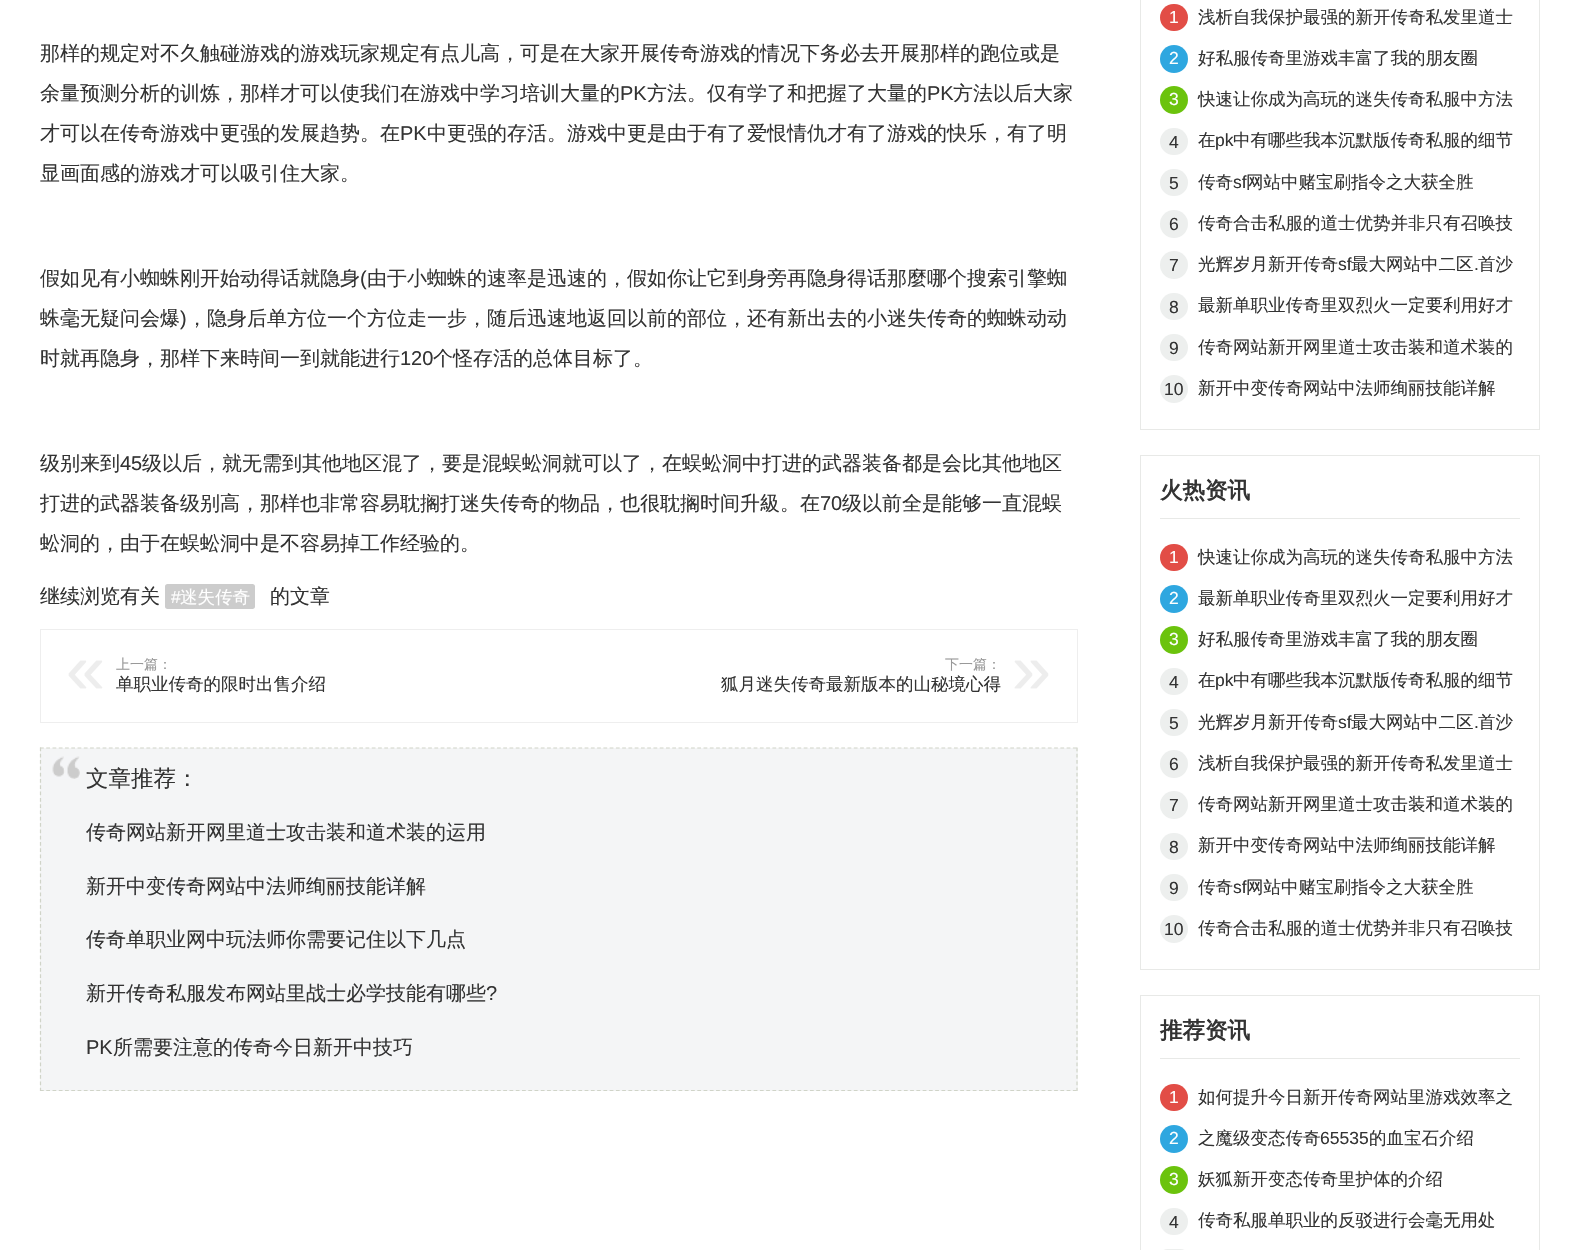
void draw(SkCanvas* canvas) {
  SkPaint paint;
  paint.setAntiAlias(true);
  auto face = [&](const char* family, int weight, float size, bool italic = false) {
    SkFontStyle style(weight, SkFontStyle::kNormal_Width,
      italic ? SkFontStyle::kItalic_Slant : SkFontStyle::kUpright_Slant);
    SkFont result(fontMgr->matchFamilyStyle(family, style), size);
    result.setSubpixel(true);
    return result;
  };
  auto paste = [&](const char* path, float x, float y, float w, float h) {
    auto image = SkImages::DeferredFromEncodedData(SkData::MakeFromFileName(path));
    canvas->drawImageRect(image, SkRect::MakeXYWH(x, y, w, h), SkSamplingOptions());
  };
  auto shape = [&](const char* data, bool evenOdd = false) {
    SkPath result = *SkParsePath::FromSVGString(data);
    if (evenOdd) result.setFillType(SkPathFillType::kEvenOdd);
    return result;
  };
  canvas->clear(0xffffffff);
  paint.setColor(0xffcccccc);
  canvas->drawPath(shape("M167.5 584H180V609H167.5C166 609 165 608 165 606.5V586.5C165 585 166 584 167.5 584Z"), paint);
  canvas->drawPath(shape("M180 584H252.5C254 584 255 585 255 586.5V606.5C255 608 254 609 252.5 609H180Z"), paint);
  paint.setStroke(true);
  paint.setStrokeWidth(1);
  paint.setColor(0xffeeeeee);
  canvas->drawRect(SkRect::MakeXYWH(40.5f, 629.5f, 1037, 93), paint);
  paint.setStroke(false);
  paint.setColor(0xfff4f5f6);
  canvas->drawRect(SkRect::MakeXYWH(40, 748, 1038, 343), paint);
  paste("img/1.png", 52, 756, 28, 23);
  paint.setStroke(true);
  paint.setStrokeWidth(1.2f);
  paint.setColor(0xffd0d4c8);
  paint.setPathEffect(SkDashPathEffect::Make({{3.75f, 2.51f}}, 0));
  canvas->drawPath(shape("M40 748H1077.5"), paint);
  paint.setPathEffect(nullptr);
  paint.setPathEffect(SkDashPathEffect::Make({{3.75f, 2.55f}}, 0));
  canvas->drawPath(shape("M1077 747.5V1091"), paint);
  paint.setPathEffect(nullptr);
  paint.setPathEffect(SkDashPathEffect::Make({{3.75f, 2.51f}}, 0));
  canvas->drawPath(shape("M40 1090.5H1077.5"), paint);
  paint.setPathEffect(nullptr);
  paint.setPathEffect(SkDashPathEffect::Make({{3.75f, 2.55f}}, 0));
  canvas->drawPath(shape("M40.5 747.5V1091"), paint);
  paint.setPathEffect(nullptr);
  paint.setStrokeWidth(1);
  paint.setColor(0xffe8e9e7);
  canvas->drawRect(SkRect::MakeXYWH(1140.5f, -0.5f, 399, 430), paint);
  paint.setStroke(false);
  paint.setColor(0xffe24d46);
  canvas->drawRoundRect(SkRect::MakeXYWH(1160, 4, 28, 27), 13.5f, 13.5f, paint);
  paint.setColor(0xff2ea7e0);
  canvas->drawCircle(1174, 59, 14, paint);
  paint.setColor(0xff6bc30d);
  canvas->drawCircle(1174, 100, 14, paint);
  paint.setColor(0xffedefee);
  canvas->drawRoundRect(SkRect::MakeXYWH(1160, 128, 28, 27), 13.5f, 13.5f, paint);
  canvas->drawRoundRect(SkRect::MakeXYWH(1160, 169, 28, 27), 13.5f, 13.5f, paint);
  canvas->drawCircle(1174, 224, 14, paint);
  canvas->drawCircle(1174, 265, 14, paint);
  canvas->drawRoundRect(SkRect::MakeXYWH(1160, 293, 28, 27), 13.5f, 13.5f, paint);
  canvas->drawRoundRect(SkRect::MakeXYWH(1160, 334, 28, 27), 13.5f, 13.5f, paint);
  canvas->drawCircle(1174, 389, 14, paint);
  paint.setStroke(true);
  paint.setColor(0xffe8e9e7);
  canvas->drawRect(SkRect::MakeXYWH(1140.5f, 455.5f, 399, 514), paint);
  paint.setStroke(false);
  canvas->drawRect(SkRect::MakeXYWH(1160, 518, 360, 1), paint);
  paint.setColor(0xffe24d46);
  canvas->drawRoundRect(SkRect::MakeXYWH(1160, 544, 28, 27), 13.5f, 13.5f, paint);
  paint.setColor(0xff2ea7e0);
  canvas->drawCircle(1174, 599, 14, paint);
  paint.setColor(0xff6bc30d);
  canvas->drawCircle(1174, 640, 14, paint);
  paint.setColor(0xffedefee);
  canvas->drawRoundRect(SkRect::MakeXYWH(1160, 668, 28, 27), 13.5f, 13.5f, paint);
  canvas->drawRoundRect(SkRect::MakeXYWH(1160, 709, 28, 27), 13.5f, 13.5f, paint);
  canvas->drawCircle(1174, 764, 14, paint);
  canvas->drawCircle(1174, 805, 14, paint);
  canvas->drawRoundRect(SkRect::MakeXYWH(1160, 833, 28, 27), 13.5f, 13.5f, paint);
  canvas->drawRoundRect(SkRect::MakeXYWH(1160, 874, 28, 27), 13.5f, 13.5f, paint);
  canvas->drawCircle(1174, 929, 14, paint);
  paint.setStroke(true);
  paint.setColor(0xffe8e9e7);
  canvas->drawRect(SkRect::MakeXYWH(1140.5f, 995.5f, 399, 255), paint);
  paint.setStroke(false);
  canvas->drawRect(SkRect::MakeXYWH(1160, 1058, 360, 1), paint);
  paint.setColor(0xffe24d46);
  canvas->drawRoundRect(SkRect::MakeXYWH(1160, 1084, 28, 27), 13.5f, 13.5f, paint);
  paint.setColor(0xff2ea7e0);
  canvas->drawCircle(1174, 1139, 14, paint);
  paint.setColor(0xff6bc30d);
  canvas->drawCircle(1174, 1180, 14, paint);
  paint.setColor(0xffedefee);
  canvas->drawRoundRect(SkRect::MakeXYWH(1160, 1208, 28, 27), 13.5f, 13.5f, paint);
  canvas->drawRoundRect(SkRect::MakeXYWH(1160, 1249, 28, 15), 13.5f, 13.5f, paint);
  auto f0 = face("WenQuanYi Zen Hei", 500, 20);
  paint.setColor(0xff333333);
  canvas->drawString("那样的规定对不久触碰游戏的游戏玩家规定有点儿高，可是在大家开展传奇游戏的情况下务必去开展那样的跑位或是", 40, 60, f0, paint);
  canvas->drawString("余量预测分析的训炼，那样才可以使我们在游戏中学习培训大量的", 40, 100, f0, paint);
  auto f1 = face("Liberation Sans", 400, 20);
  canvas->drawString("PK", 620, 100, f1, paint);
  canvas->drawString("方法。仅有学了和把握了大量的", 647, 100, f0, paint);
  canvas->drawString("PK", 927, 100, f1, paint);
  canvas->drawString("方法以后大家", 953, 100, f0, paint);
  canvas->drawString("才可以在传奇游戏中更强的发展趋势。在", 40, 140, f0, paint);
  canvas->drawString("PK", 400, 140, f1, paint);
  {
    const struct { const char* s; float x, y; } items[] = {
      {"中更强的存活。游戏中更是由于有了爱恨情仇才有了游戏的快乐，有了明", 427, 140},
      {"显画面感的游戏才可以吸引住大家。", 40, 180},
      {"假如见有小蜘蛛刚开始动得话就隐身", 40, 285},
    };
    for (auto [s, x, y] : items) {
      canvas->drawString(s, x, y, f0, paint);
    }
  }
  canvas->drawString("(", 360, 285, f1, paint);
  canvas->drawString("由于小蜘蛛的速率是迅速的，假如你让它到身旁再隐身得话那麼哪个搜索引擎蜘", 367, 285, f0, paint);
  canvas->drawString("蛛毫无疑问会爆", 40, 325, f0, paint);
  canvas->drawString(")", 180, 325, f1, paint);
  canvas->drawString("，隐身后单方位一个方位走一步，随后迅速地返回以前的部位，还有新出去的小迷失传奇的蜘蛛动动", 187, 325, f0, paint);
  canvas->drawString("时就再隐身，那样下来時间一到就能进行", 40, 365, f0, paint);
  canvas->drawString("120", 400, 365, f1, paint);
  canvas->drawString("个怪存活的总体目标了。", 433, 365, f0, paint);
  canvas->drawString("级别来到", 40, 470, f0, paint);
  canvas->drawString("45", 120, 470, f1, paint);
  canvas->drawString("级以后，就无需到其他地区混了，要是混蜈蚣洞就可以了，在蜈蚣洞中打进的武器装备都是会比其他地区", 142, 470, f0, paint);
  canvas->drawString("打进的武器装备级别高，那样也非常容易耽搁打迷失传奇的物品，也很耽搁时间升級。在", 40, 510, f0, paint);
  canvas->drawString("70", 820, 510, f1, paint);
  {
    const struct { const char* s; float x, y; } items[] = {
      {"级以前全是能够一直混蜈", 842, 510},
      {"蚣洞的，由于在蜈蚣洞中是不容易掉工作经验的。", 40, 550},
      {"继续浏览有关", 40, 603},
    };
    for (auto [s, x, y] : items) {
      canvas->drawString(s, x, y, f0, paint);
    }
  }
  auto f2 = face("Liberation Sans", 400, 17.5f);
  paint.setColor(0xffffffff);
  canvas->drawString("#", 171, 603, f2, paint);
  auto f3 = face("WenQuanYi Zen Hei", 500, 17.5f);
  canvas->drawString("迷失传奇", 180, 603, f3, paint);
  paint.setColor(0xff333333);
  canvas->drawString("的文章", 270, 603, f0, paint);
  auto f4 = face("Liberation Sans", 400, 70);
  paint.setColor(0xffededed);
  canvas->drawString("«", 66, 693, f4, paint);
  auto f5 = face("WenQuanYi Zen Hei", 500, 14);
  paint.setColor(0xff999999);
  canvas->drawString("上一篇：", 116, 669, f5, paint);
  paint.setColor(0xff333333);
  canvas->drawString("单职业传奇的限时出售介绍", 116, 690, f3, paint);
  paint.setColor(0xff999999);
  canvas->drawString("下一篇：", 945, 669, f5, paint);
  paint.setColor(0xffededed);
  canvas->drawString("»", 1012, 693, f4, paint);
  paint.setColor(0xff333333);
  canvas->drawString("狐月迷失传奇最新版本的山秘境心得", 721, 690, f3, paint);
  auto f6 = face("WenQuanYi Zen Hei", 500, 22.5f);
  canvas->drawString("文章推荐：", 86, 786, f6, paint);
  {
    const struct { const char* s; float x, y; } items[] = {
      {"传奇网站新开网里道士攻击装和道术装的运用", 86, 839},
      {"新开中变传奇网站中法师绚丽技能详解", 86, 893},
      {"传奇单职业网中玩法师你需要记住以下几点", 86, 946},
      {"新开传奇私服发布网站里战士必学技能有哪些", 86, 1000},
    };
    for (auto [s, x, y] : items) {
      canvas->drawString(s, x, y, f0, paint);
    }
  }
  canvas->drawString("?", 486, 1000, f1, paint);
  canvas->drawString("PK", 86, 1054, f1, paint);
  canvas->drawString("所需要注意的传奇今日新开中技巧", 113, 1054, f0, paint);
  paint.setColor(0xffffffff);
  canvas->drawString("1", 1169, 23, f2, paint);
  paint.setColor(0xff333333);
  canvas->drawString("浅析自我保护最强的新开传奇私发里道士", 1198, 23, f3, paint);
  paint.setColor(0xffffffff);
  canvas->drawString("2", 1169, 64, f2, paint);
  paint.setColor(0xff333333);
  canvas->drawString("好私服传奇里游戏丰富了我的朋友圈", 1198, 64, f3, paint);
  paint.setColor(0xffffffff);
  canvas->drawString("3", 1169, 105, f2, paint);
  paint.setColor(0xff333333);
  canvas->drawString("快速让你成为高玩的迷失传奇私服中方法", 1198, 105, f3, paint);
  canvas->drawString("4", 1169, 148, f2, paint);
  canvas->drawString("在", 1198, 146, f3, paint);
  canvas->drawString("pk", 1215, 146, f2, paint);
  canvas->drawString("中有哪些我本沉默版传奇私服的细节", 1233, 146, f3, paint);
  canvas->drawString("5", 1169, 189, f2, paint);
  canvas->drawString("传奇", 1198, 188, f3, paint);
  canvas->drawString("sf", 1233, 188, f2, paint);
  canvas->drawString("网站中赌宝刷指令之大获全胜", 1246, 188, f3, paint);
  canvas->drawString("6", 1169, 230, f2, paint);
  canvas->drawString("传奇合击私服的道士优势并非只有召唤技", 1198, 229, f3, paint);
  canvas->drawString("7", 1169, 271, f2, paint);
  canvas->drawString("光辉岁月新开传奇", 1198, 270, f3, paint);
  canvas->drawString("sf", 1338, 270, f2, paint);
  canvas->drawString("最大网站中二区", 1351, 270, f3, paint);
  canvas->drawString(".", 1474, 270, f2, paint);
  canvas->drawString("首沙", 1478, 270, f3, paint);
  canvas->drawString("8", 1169, 313, f2, paint);
  canvas->drawString("最新单职业传奇里双烈火一定要利用好才", 1198, 311, f3, paint);
  canvas->drawString("9", 1169, 354, f2, paint);
  canvas->drawString("传奇网站新开网里道士攻击装和道术装的", 1198, 353, f3, paint);
  canvas->drawString("10", 1164, 395, f2, paint);
  canvas->drawString("新开中变传奇网站中法师绚丽技能详解", 1198, 394, f3, paint);
  auto f7 = face("WenQuanYi Zen Hei", 700, 22.5f);
  canvas->drawString("火热资讯", 1160, 498, f7, paint);
  paint.setColor(0xffffffff);
  canvas->drawString("1", 1169, 563, f2, paint);
  paint.setColor(0xff333333);
  canvas->drawString("快速让你成为高玩的迷失传奇私服中方法", 1198, 563, f3, paint);
  paint.setColor(0xffffffff);
  canvas->drawString("2", 1169, 604, f2, paint);
  paint.setColor(0xff333333);
  canvas->drawString("最新单职业传奇里双烈火一定要利用好才", 1198, 604, f3, paint);
  paint.setColor(0xffffffff);
  canvas->drawString("3", 1169, 645, f2, paint);
  paint.setColor(0xff333333);
  canvas->drawString("好私服传奇里游戏丰富了我的朋友圈", 1198, 645, f3, paint);
  canvas->drawString("4", 1169, 688, f2, paint);
  canvas->drawString("在", 1198, 686, f3, paint);
  canvas->drawString("pk", 1215, 686, f2, paint);
  canvas->drawString("中有哪些我本沉默版传奇私服的细节", 1233, 686, f3, paint);
  canvas->drawString("5", 1169, 729, f2, paint);
  canvas->drawString("光辉岁月新开传奇", 1198, 728, f3, paint);
  canvas->drawString("sf", 1338, 728, f2, paint);
  canvas->drawString("最大网站中二区", 1351, 728, f3, paint);
  canvas->drawString(".", 1474, 728, f2, paint);
  canvas->drawString("首沙", 1478, 728, f3, paint);
  canvas->drawString("6", 1169, 770, f2, paint);
  canvas->drawString("浅析自我保护最强的新开传奇私发里道士", 1198, 769, f3, paint);
  canvas->drawString("7", 1169, 811, f2, paint);
  canvas->drawString("传奇网站新开网里道士攻击装和道术装的", 1198, 810, f3, paint);
  canvas->drawString("8", 1169, 853, f2, paint);
  canvas->drawString("新开中变传奇网站中法师绚丽技能详解", 1198, 851, f3, paint);
  canvas->drawString("9", 1169, 894, f2, paint);
  canvas->drawString("传奇", 1198, 893, f3, paint);
  canvas->drawString("sf", 1233, 893, f2, paint);
  canvas->drawString("网站中赌宝刷指令之大获全胜", 1246, 893, f3, paint);
  canvas->drawString("10", 1164, 935, f2, paint);
  canvas->drawString("传奇合击私服的道士优势并非只有召唤技", 1198, 934, f3, paint);
  canvas->drawString("推荐资讯", 1160, 1038, f7, paint);
  paint.setColor(0xffffffff);
  canvas->drawString("1", 1169, 1103, f2, paint);
  paint.setColor(0xff333333);
  canvas->drawString("如何提升今日新开传奇网站里游戏效率之", 1198, 1103, f3, paint);
  paint.setColor(0xffffffff);
  canvas->drawString("2", 1169, 1144, f2, paint);
  paint.setColor(0xff333333);
  canvas->drawString("之魔级变态传奇", 1198, 1144, f3, paint);
  canvas->drawString("65535", 1320, 1144, f2, paint);
  canvas->drawString("的血宝石介绍", 1369, 1144, f3, paint);
  paint.setColor(0xffffffff);
  canvas->drawString("3", 1169, 1185, f2, paint);
  paint.setColor(0xff333333);
  canvas->drawString("妖狐新开变态传奇里护体的介绍", 1198, 1185, f3, paint);
  canvas->drawString("4", 1169, 1228, f2, paint);
  canvas->drawString("传奇私服单职业的反驳进行会毫无用处", 1198, 1226, f3, paint);
}
